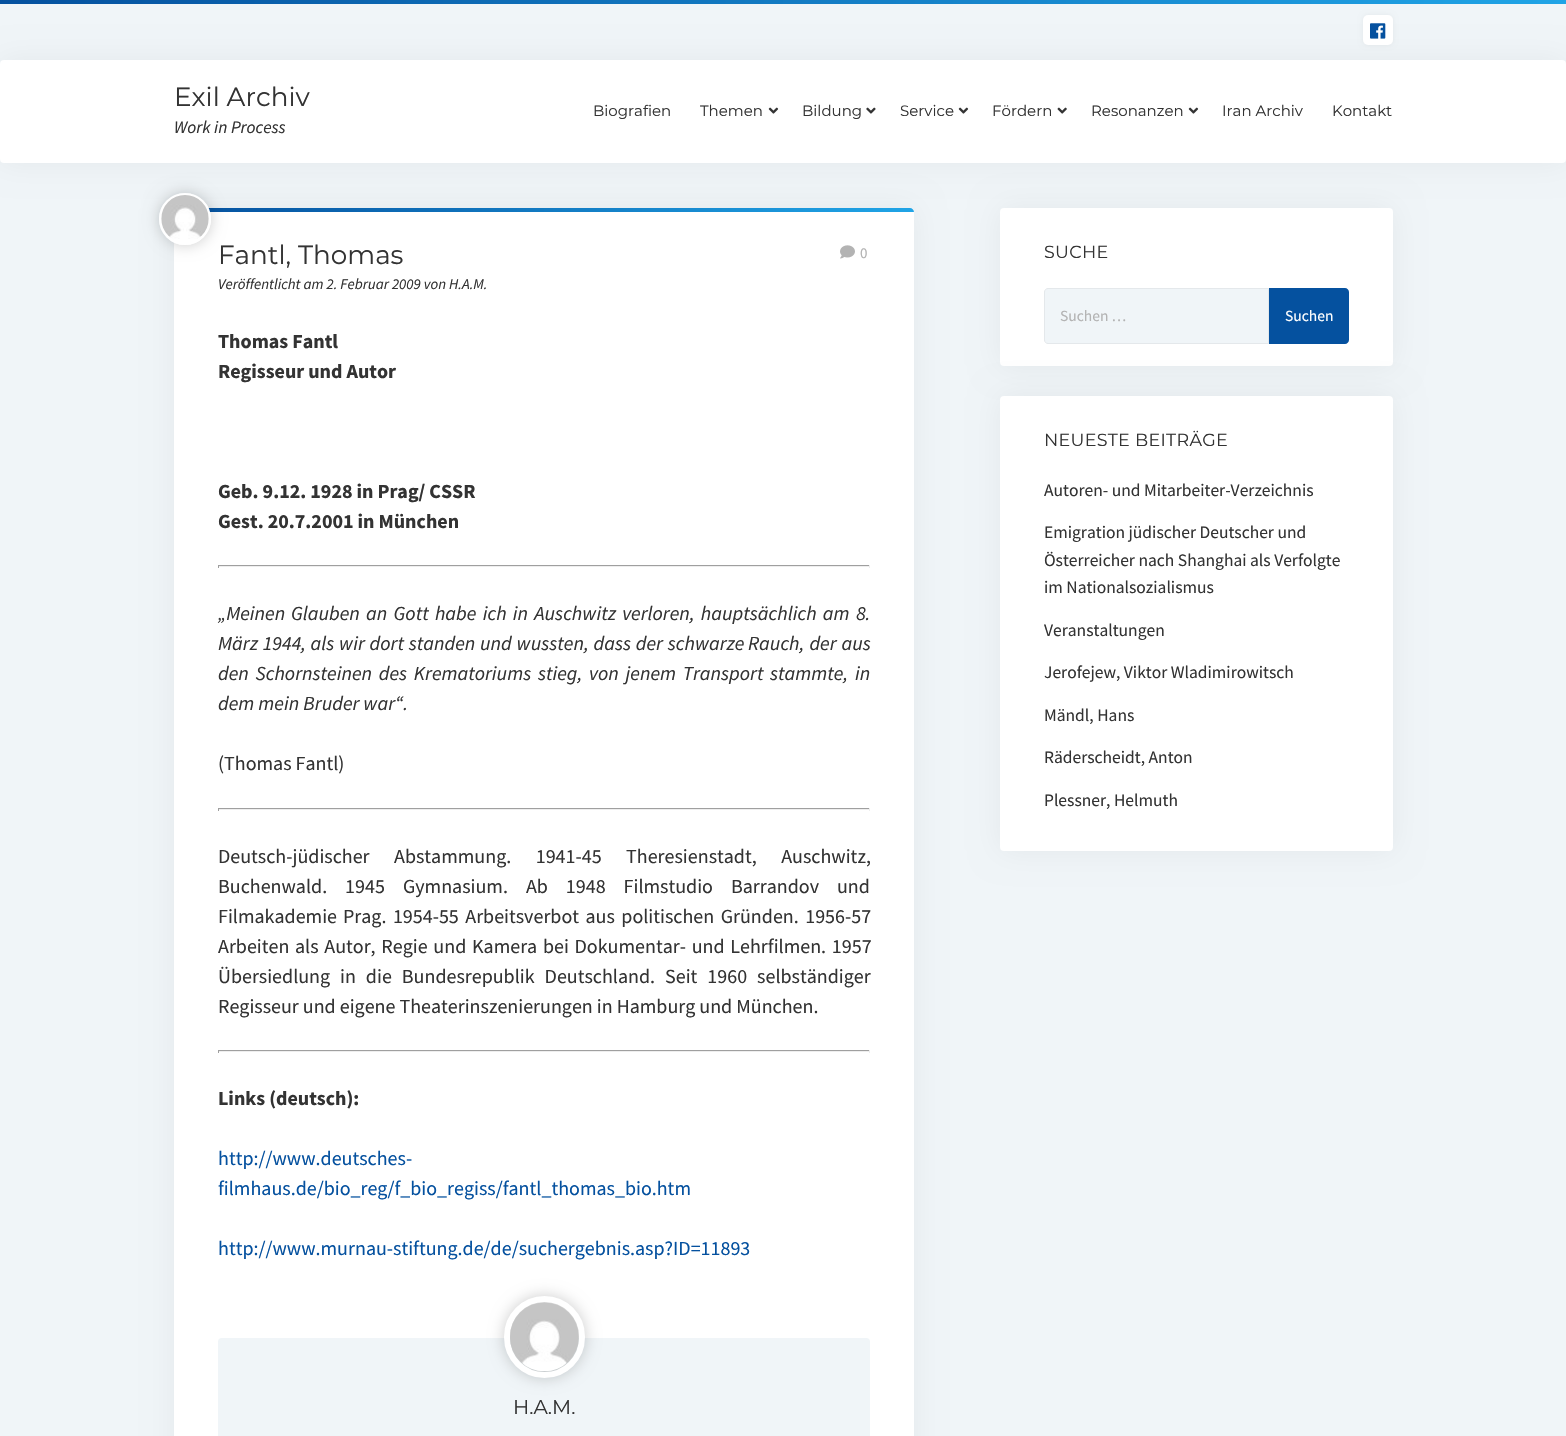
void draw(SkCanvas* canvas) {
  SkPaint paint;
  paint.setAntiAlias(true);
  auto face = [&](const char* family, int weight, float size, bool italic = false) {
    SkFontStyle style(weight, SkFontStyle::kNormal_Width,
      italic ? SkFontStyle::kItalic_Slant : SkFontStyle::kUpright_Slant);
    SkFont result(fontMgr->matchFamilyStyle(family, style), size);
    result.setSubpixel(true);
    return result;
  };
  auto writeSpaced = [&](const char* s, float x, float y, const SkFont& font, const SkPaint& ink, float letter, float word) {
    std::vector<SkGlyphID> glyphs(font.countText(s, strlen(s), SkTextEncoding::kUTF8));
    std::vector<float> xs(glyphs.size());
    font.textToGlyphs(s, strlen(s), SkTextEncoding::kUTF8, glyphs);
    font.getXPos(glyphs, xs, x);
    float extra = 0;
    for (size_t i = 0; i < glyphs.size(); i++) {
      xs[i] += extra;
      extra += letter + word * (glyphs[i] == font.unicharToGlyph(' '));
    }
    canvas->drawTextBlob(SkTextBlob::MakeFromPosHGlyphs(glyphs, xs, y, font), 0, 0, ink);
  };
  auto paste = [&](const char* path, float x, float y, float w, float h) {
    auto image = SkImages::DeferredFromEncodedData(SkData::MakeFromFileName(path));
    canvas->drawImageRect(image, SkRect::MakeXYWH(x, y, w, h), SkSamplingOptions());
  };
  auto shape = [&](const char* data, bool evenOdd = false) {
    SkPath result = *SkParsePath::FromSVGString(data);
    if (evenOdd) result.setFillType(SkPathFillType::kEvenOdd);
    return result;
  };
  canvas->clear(0xfff0f5f8);
  {
    const SkColor colors[] = {0xff05519f, 0xff20a4e6};
    const float stops[] = {0, 1};
    const SkPoint ends[] = {{0, 1.9f}, {1566, 1.9f}};
    paint.setShader(SkGradientShader::MakeLinear(ends, colors, stops, 2, SkTileMode::kClamp));
    paint.setAlpha(255);
  }
  canvas->drawRect(SkRect::MakeXYWH(0, 0, 1566, 4), paint);
  paint.setShader(nullptr);
  paint.setColor(0x0d000000);
  paint.setMaskFilter(SkMaskFilter::MakeBlur(kNormal_SkBlurStyle, 2.5f));
  canvas->drawRoundRect(SkRect::MakeXYWH(1363, 15, 30, 30), 5, 5, paint);
  paint.setMaskFilter(nullptr);
  paint.setMaskFilter(SkMaskFilter::MakeBlur(kNormal_SkBlurStyle, 15));
  canvas->drawRoundRect(SkRect::MakeXYWH(1000, 208, 393, 158), 4, 4, paint);
  paint.setMaskFilter(nullptr);
  paint.setColor(0xffffffff);
  canvas->drawRoundRect(SkRect::MakeXYWH(1000, 208, 393, 158), 4, 4, paint);
  paint.setColor(0x0d000000);
  paint.setMaskFilter(SkMaskFilter::MakeBlur(kNormal_SkBlurStyle, 15));
  canvas->drawRoundRect(SkRect::MakeXYWH(0, 60, 1566, 103), 4, 4, paint);
  paint.setMaskFilter(nullptr);
  paint.setColor(0xffffffff);
  canvas->drawRoundRect(SkRect::MakeXYWH(1363, 15, 30, 30), 5, 5, paint);
  paste("img/1.png", 1370, 23, 16, 16);
  canvas->drawRoundRect(SkRect::MakeXYWH(0, 60, 1566, 103), 4, 4, paint);
  paste("img/2.png", 768, 107, 11, 7);
  paste("img/3.png", 866, 107, 10, 7);
  paste("img/2.png", 958, 107, 11, 7);
  paste("img/4.png", 1057, 107, 10, 7);
  paste("img/2.png", 1188, 107, 11, 7);
  paint.setColor(0x0d000000);
  paint.setMaskFilter(SkMaskFilter::MakeBlur(kNormal_SkBlurStyle, 15));
  canvas->drawRoundRect(SkRect::MakeXYWH(174, 208, 740, 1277), 4, 4, paint);
  paint.setMaskFilter(nullptr);
  paint.setColor(0xffffffff);
  canvas->drawRoundRect(SkRect::MakeXYWH(174, 208, 740, 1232), 4, 4, paint);
  {
    const SkColor colors[] = {0xff05519f, 0xff20a4e6};
    const float stops[] = {0, 1};
    const SkPoint ends[] = {{174, 209}, {914, 209}};
    paint.setShader(SkGradientShader::MakeLinear(ends, colors, stops, 2, SkTileMode::kClamp));
    paint.setAlpha(255);
  }
  canvas->drawPath(shape("M178 208H910C912 208 914 210 914 212H174C174 210 176 208 178 208Z"), paint);
  canvas->save();
  canvas->clipPath(shape("M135 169H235V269H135ZM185 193C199.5 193 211 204.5 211 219C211 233.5 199.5 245 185 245C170.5 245 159 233.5 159 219C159 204.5 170.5 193 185 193Z", true), true);
  paint.setShader(nullptr);
  paint.setColor(0x33000000);
  paint.setMaskFilter(SkMaskFilter::MakeBlur(kNormal_SkBlurStyle, 7.5f));
  canvas->drawRoundRect(SkRect::MakeXYWH(159, 193, 52, 52), 26, 26, paint);
  paint.setMaskFilter(nullptr);
  canvas->restore();
  paint.setStroke(true);
  paint.setStrokeWidth(3);
  paint.setColor(0xffffffff);
  canvas->drawCircle(185, 219, 24.5f, paint);
  paste("img/5.png", 161, 195, 48, 44);
  paste("img/6.png", 840, 245, 15, 14);
  paint.setStroke(false);
  {
    const struct { float x, y, w, h; SkColor color; } items[] = {
      {218, 565, 652, 1, 0xff9f9f9f},
      {869, 565, 1, 3, 0xffeeeeee},
      {218, 566, 652, 1, 0xffeeeeee},
      {218, 565, 1, 3, 0xff9f9f9f},
      {218, 808, 652, 1, 0xff9f9f9f},
      {869, 808, 1, 3, 0xffeeeeee},
      {218, 809, 652, 1, 0xffeeeeee},
      {218, 808, 1, 3, 0xff9f9f9f},
      {218, 1050, 652, 1, 0xff9f9f9f},
      {869, 1050, 1, 3, 0xffeeeeee},
      {218, 1051, 652, 1, 0xffeeeeee},
      {218, 1050, 1, 3, 0xff9f9f9f},
    };
    for (auto [x, y, w, h, color] : items) {
      paint.setColor(color);
      canvas->drawRect(SkRect::MakeXYWH(x, y, w, h), paint);
    }
  }
  paint.setColor(0xfff0f5f8);
  canvas->drawRoundRect(SkRect::MakeXYWH(218, 1338, 652, 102), 4, 4, paint);
  paint.setColor(0x33000000);
  paint.setMaskFilter(SkMaskFilter::MakeBlur(kNormal_SkBlurStyle, 7.5f));
  canvas->drawRoundRect(SkRect::MakeXYWH(504, 1296, 81, 82), 40.5f, 40.5f, paint);
  paint.setMaskFilter(nullptr);
  paint.setStroke(true);
  paint.setStrokeWidth(6);
  paint.setColor(0xffffffff);
  canvas->drawRoundRect(SkRect::MakeXYWH(507, 1299, 75, 76), 37.5f, 37.5f, paint);
  paste("img/7.png", 510, 1302, 69, 69);
  paint.setStroke(false);
  paint.setColor(0xfff0f5f8);
  canvas->drawPath(shape("M1048 288.5H1268.5V343.5H1048C1046 343.5 1044.5 342 1044.5 340V292C1044.5 290 1046 288.5 1048 288.5Z"), paint);
  paint.setStroke(true);
  paint.setStrokeWidth(1);
  paint.setColor(0xffe4e8eb);
  canvas->drawPath(shape("M1048 288.5H1268.5V343.5H1048C1046 343.5 1044.5 342 1044.5 340V292C1044.5 290 1046 288.5 1048 288.5Z"), paint);
  paint.setStroke(false);
  paint.setColor(0xff05519f);
  canvas->drawPath(shape("M1269 288H1345C1347 288 1349 290 1349 292V340C1349 342 1347 344 1345 344H1269Z"), paint);
  paint.setColor(0x0d000000);
  paint.setMaskFilter(SkMaskFilter::MakeBlur(kNormal_SkBlurStyle, 15));
  canvas->drawRoundRect(SkRect::MakeXYWH(1000, 396, 393, 455), 4, 4, paint);
  paint.setMaskFilter(nullptr);
  paint.setColor(0xffffffff);
  canvas->drawRoundRect(SkRect::MakeXYWH(1000, 396, 393, 455), 4, 4, paint);
  auto f0 = face("Montserrat", 100, 26.25f);
  paint.setColor(0xff333333);
  canvas->drawString("Exil Archiv", 174, 106, f0, paint);
  auto f1 = face("Source Sans Pro", 400, 17.5f, true);
  canvas->drawString("Work in Process", 174, 133, f1, paint);
  auto f2 = face("Montserrat", 100, 15);
  {
    const struct { const char* s; float x, y; } items[] = {
      {"Biografien", 593, 116},
      {"Themen", 700, 116},
      {"Bildung", 802, 116},
      {"Service", 900, 116},
      {"Fördern", 992, 116},
      {"Resonanzen", 1091, 116},
      {"Iran Archiv", 1222, 116},
      {"Kontakt", 1332, 116},
    };
    for (auto [s, x, y] : items) {
      canvas->drawString(s, x, y, f2, paint);
    }
  }
  canvas->drawString("Fantl, Thomas", 218, 264, f0, paint);
  auto f3 = face("Source Sans Pro", 400, 15);
  paint.setColor(0xffb3b3b3);
  canvas->drawString("0", 860, 258, f3, paint);
  auto f4 = face("Source Sans Pro", 400, 15, true);
  paint.setColor(0xff333333);
  canvas->drawString("Veröffentlicht am 2. Februar 2009 von H.A.M.", 218, 289, f4, paint);
  auto f5 = face("Source Sans Pro", 700, 20);
  {
    const struct { const char* s; float x, y; } items[] = {
      {"Thomas Fantl", 218, 348},
      {"Regisseur und Autor", 218, 378},
      {"Geb. 9.12. 1928 in Prag/ CSSR", 218, 498},
      {"Gest. 20.7.2001 in München", 218, 528},
    };
    for (auto [s, x, y] : items) {
      canvas->drawString(s, x, y, f5, paint);
    }
  }
  auto f6 = face("Source Sans Pro", 400, 20, true);
  canvas->drawString("„Meinen", 218, 620, f6, paint);
  writeSpaced("Glauben an Gott habe ich in Auschwitz verloren, hauptsächlich am", 291, 620, f6, paint, 0, 2.25f);
  canvas->drawString("8.", 856, 620, f6, paint);
  writeSpaced("März 1944, als wir dort standen und wussten, dass der schwarze", 218, 650, f6, paint, 0, 0.75f);
  writeSpaced("Rauch, der aus", 748, 650, f6, paint, 0, 1);
  writeSpaced("den Schornsteinen des Krematoriums stieg, von jenem Transport", 218, 680, f6, paint, 0, 2.75f);
  writeSpaced("stammte, in", 770, 680, f6, paint, 0, 2.75f);
  canvas->drawString("dem mein Bruder war“.", 218, 710, f6, paint);
  auto f7 = face("Source Sans Pro", 400, 20);
  canvas->drawString("(Thomas Fantl)", 218, 770, f7, paint);
  writeSpaced("Deutsch-jüdischer Abstammung. 1941-45 Theresienstadt, Auschwitz,", 218, 863, f7, paint, 0, 20.5f);
  writeSpaced("Buchenwald. 1945 Gymnasium. Ab 1948 Filmstudio Barrandov und", 218, 893, f7, paint, 0, 14);
  canvas->drawString("Filmakademie", 218, 923, f7, paint);
  writeSpaced("Prag. 1954-55 Arbeitsverbot aus politischen Gründen. 1956-57", 343, 923, f7, paint, 0, 2.5f);
  canvas->drawString("Arbeiten", 218, 953, f7, paint);
  writeSpaced("als Autor, Regie und Kamera bei Dokumentar- und Lehrfilmen. 1957", 295, 953, f7, paint, 0, 1.75f);
  canvas->drawString("Übersiedlung", 218, 983, f7, paint);
  writeSpaced("in die Bundesrepublik Deutschland. Seit 1960 selbständiger", 340, 983, f7, paint, 0, 6);
  canvas->drawString("Regisseur und eigene Theaterinszenierungen in Hamburg und München.", 218, 1013, f7, paint);
  canvas->drawString("Links (deutsch):", 218, 1105, f5, paint);
  paint.setColor(0xff05519f);
  {
    const struct { const char* s; float x, y; } items[] = {
      {"http://www.deutsches-", 218, 1165},
      {"filmhaus.de/bio_reg/f_bio_regiss/fantl_thomas_bio.htm", 218, 1195},
      {"http://www.murnau-stiftung.de/de/suchergebnis.asp?ID=11893", 218, 1255},
    };
    for (auto [s, x, y] : items) {
      canvas->drawString(s, x, y, f7, paint);
    }
  }
  auto f8 = face("Montserrat", 100, 20);
  paint.setColor(0xff333333);
  canvas->drawString("H.A.M.", 513, 1414, f8, paint);
  auto f9 = face("Montserrat", 100, 17.5f);
  writeSpaced("SUCHE", 1044, 258, f9, paint, 0.3f, 0);
  auto f10 = face("Source Sans Pro", 400, 15.5f);
  paint.setColor(0xffb3b3b3);
  canvas->drawString("Suchen …", 1060, 321, f10, paint);
  paint.setColor(0xffffffff);
  canvas->drawString("Suchen", 1285, 321, f10, paint);
  paint.setColor(0xff333333);
  writeSpaced("NEUESTE BEITRÄGE", 1044, 446, f9, paint, 0.3f, 0);
  auto f11 = face("Source Sans Pro", 400, 17.5f);
  {
    const struct { const char* s; float x, y; } items[] = {
      {"Autoren- und Mitarbeiter-Verzeichnis", 1044, 496},
      {"Emigration jüdischer Deutscher und", 1044, 538},
      {"Österreicher nach Shanghai als Verfolgte", 1044, 566},
      {"im Nationalsozialismus", 1044, 593},
      {"Veranstaltungen", 1044, 636},
      {"Jerofejew, Viktor Wladimirowitsch", 1044, 678},
      {"Mändl, Hans", 1044, 721},
      {"Räderscheidt, Anton", 1044, 763},
      {"Plessner, Helmuth", 1044, 806},
    };
    for (auto [s, x, y] : items) {
      canvas->drawString(s, x, y, f11, paint);
    }
  }
}
